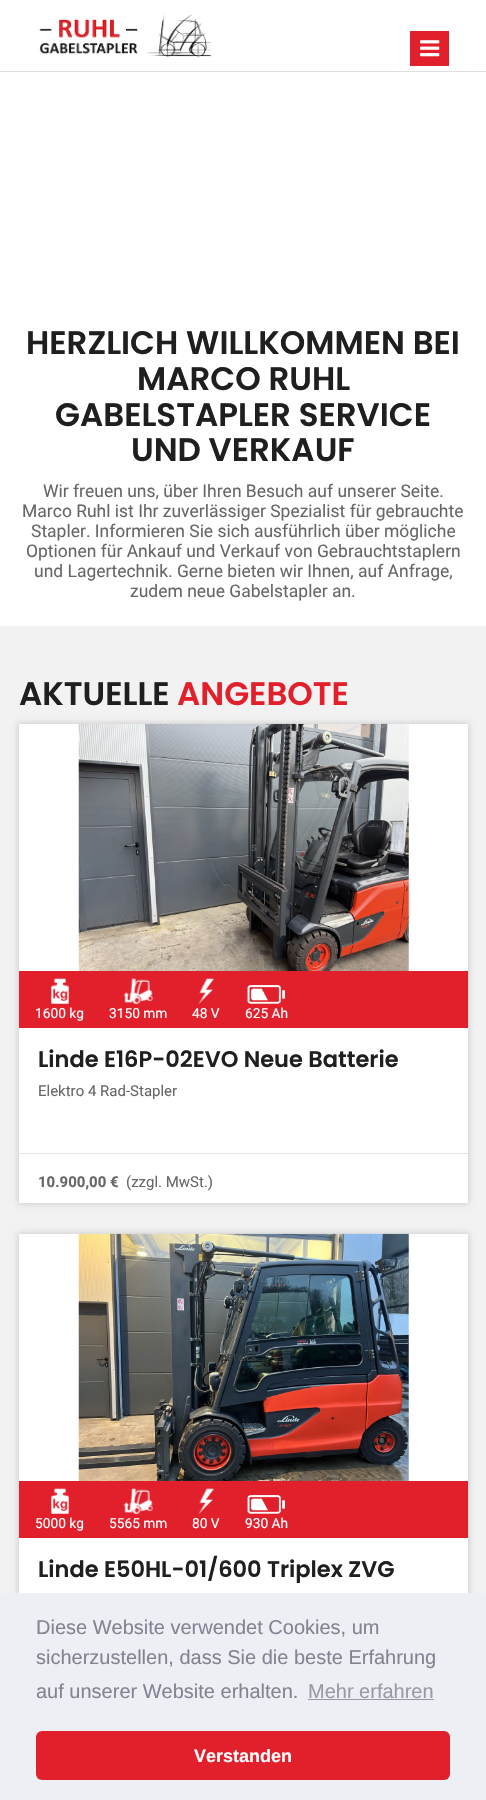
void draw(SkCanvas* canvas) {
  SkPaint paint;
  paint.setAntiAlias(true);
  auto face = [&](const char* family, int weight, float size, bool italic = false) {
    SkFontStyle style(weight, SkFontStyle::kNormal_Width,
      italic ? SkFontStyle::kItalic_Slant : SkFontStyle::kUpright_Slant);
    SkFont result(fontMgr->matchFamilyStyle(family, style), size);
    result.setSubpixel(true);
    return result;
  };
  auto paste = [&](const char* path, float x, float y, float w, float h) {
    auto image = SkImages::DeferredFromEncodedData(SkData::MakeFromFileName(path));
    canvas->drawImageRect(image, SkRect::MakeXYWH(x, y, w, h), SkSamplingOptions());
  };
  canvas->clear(0xffffffff);
  paint.setColor(0xffe0e0e0);
  canvas->drawRect(SkRect::MakeXYWH(0, 71, 486, 1), paint);
  paste("img/1.png", 39, 14, 173, 44);
  paint.setColor(0xffe1202c);
  canvas->drawRect(SkRect::MakeXYWH(410, 31, 39, 35), paint);
  paste("img/2.png", 420, 40, 20, 17);
  paint.setColor(0xfff2f2f2);
  canvas->drawRect(SkRect::MakeXYWH(0, 626, 486, 967), paint);
  paint.setColor(0x26000000);
  paint.setMaskFilter(SkMaskFilter::MakeBlur(kNormal_SkBlurStyle, 3));
  canvas->drawRect(SkRect::MakeXYWH(18, 723, 451, 481), paint);
  paint.setMaskFilter(nullptr);
  paint.setColor(0xffffffff);
  canvas->drawRect(SkRect::MakeXYWH(19, 724, 449, 479), paint);
  paste("img/3.png", 78, 723, 331, 248);
  paint.setColor(0xffe1202c);
  canvas->drawRect(SkRect::MakeXYWH(19, 971, 449, 57), paint);
  paste("img/4.png", 51, 978, 18, 26);
  paste("img/5.png", 123, 978, 30, 26);
  paste("img/6.png", 198, 978, 16, 26);
  paste("img/7.png", 247, 985, 38, 19);
  paint.setColor(0xffe5e5e5);
  canvas->drawRect(SkRect::MakeXYWH(19, 1153, 449, 1), paint);
  paint.setColor(0x26000000);
  paint.setMaskFilter(SkMaskFilter::MakeBlur(kNormal_SkBlurStyle, 3));
  canvas->drawRect(SkRect::MakeXYWH(18, 1233, 451, 481), paint);
  paint.setMaskFilter(nullptr);
  paint.setColor(0xffffffff);
  canvas->drawRect(SkRect::MakeXYWH(19, 1234, 449, 359), paint);
  paste("img/8.png", 78, 1233, 331, 248);
  paint.setColor(0xffe1202c);
  canvas->drawRect(SkRect::MakeXYWH(19, 1481, 449, 57), paint);
  paste("img/4.png", 51, 1488, 18, 26);
  paste("img/5.png", 123, 1488, 30, 26);
  paste("img/6.png", 198, 1488, 16, 26);
  paste("img/7.png", 247, 1495, 38, 19);
  paint.setColor(0xffedeff5);
  canvas->drawRect(SkRect::MakeXYWH(0, 1593, 486, 207), paint);
  paint.setColor(0xff9899a5);
  canvas->drawRect(SkRect::MakeXYWH(308, 1699, 126, 1), paint);
  paint.setColor(0xffe1202b);
  canvas->drawRoundRect(SkRect::MakeXYWH(36, 1731, 414, 49), 6, 6, paint);
  auto f0 = face("Poppins", 600, 32.5f);
  paint.setColor(0xff1f1f1f);
  {
    const struct { const char* s; float x, y; } items[] = {
      {"HERZLICH WILLKOMMEN BEI", 26, 354},
      {"MARCO RUHL", 137, 390},
      {"GABELSTAPLER SERVICE", 55, 426},
      {"UND VERKAUF", 131, 461},
    };
    for (auto [s, x, y] : items) {
      canvas->drawString(s, x, y, f0, paint);
    }
  }
  auto f1 = face("Roboto", 400, 17.5f);
  paint.setColor(0xff676767);
  {
    const struct { const char* s; float x, y; } items[] = {
      {"Wir freuen uns, über Ihren Besuch auf unserer Seite.", 43, 497},
      {"Marco Ruhl ist Ihr zuverlässiger Spezialist für gebrauchte", 22, 517},
      {"Stapler. Informieren Sie sich ausführlich über mögliche", 31, 537},
      {"Optionen für Ankauf und Verkauf von Gebrauchtstaplern", 26, 557},
      {"und Lagertechnik. Gerne bieten wir Ihnen, auf Anfrage,", 34, 577},
      {"zudem neue Gabelstapler an.", 130, 597},
    };
    for (auto [s, x, y] : items) {
      canvas->drawString(s, x, y, f1, paint);
    }
  }
  paint.setColor(0xff1f1f1f);
  canvas->drawString("AKTUELLE", 19, 705, f0, paint);
  paint.setColor(0xffe1202c);
  canvas->drawString("ANGEBOTE", 177, 705, f0, paint);
  auto f2 = face("Roboto", 700, 9);
  paint.setColor(0xff555b60);
  canvas->drawString("S", 251, 851, f2, paint);
  auto f3 = face("Roboto", 400, 13.75f);
  paint.setColor(0xffffffff);
  {
    const struct { const char* s; float x, y; } items[] = {
      {"1600 kg", 35, 1018},
      {"3150 mm", 109, 1018},
      {"48 V", 192, 1018},
      {"625 Ah", 245, 1018},
    };
    for (auto [s, x, y] : items) {
      canvas->drawString(s, x, y, f3, paint);
    }
  }
  auto f4 = face("Poppins", 600, 22.5f);
  paint.setColor(0xff1f1f1f);
  canvas->drawString("Linde E16P-02EVO Neue Batterie", 38, 1067, f4, paint);
  auto f5 = face("Roboto", 400, 15);
  paint.setColor(0xff676767);
  canvas->drawString("Elektro 4 Rad-Stapler", 38, 1096, f5, paint);
  auto f6 = face("Roboto", 700, 15);
  canvas->drawString("10.900,00 €", 38, 1187, f6, paint);
  canvas->drawString("(zzgl. MwSt.)", 126, 1187, f5, paint);
  paint.setColor(0xff374044);
  canvas->drawString("DETAILS", 221, 1361, f2, paint);
  paint.setColor(0xffffffff);
  {
    const struct { const char* s; float x, y; } items[] = {
      {"5000 kg", 35, 1528},
      {"5565 mm", 109, 1528},
      {"80 V", 192, 1528},
      {"930 Ah", 245, 1528},
    };
    for (auto [s, x, y] : items) {
      canvas->drawString(s, x, y, f3, paint);
    }
  }
  paint.setColor(0xff1f1f1f);
  canvas->drawString("Linde E50HL-01/600 Triplex ZVG", 38, 1577, f4, paint);
  auto f7 = face("Liberation Sans", 400, 20);
  paint.setColor(0xff838391);
  {
    const struct { const char* s; float x, y; } items[] = {
      {"Diese Website verwendet Cookies, um", 36, 1634},
      {"sicherzustellen, dass Sie die beste Erfahrung", 36, 1664},
      {"auf unserer Website erhalten.", 36, 1698},
    };
    for (auto [s, x, y] : items) {
      canvas->drawString(s, x, y, f7, paint);
    }
  }
  paint.setColor(0xff9899a5);
  canvas->drawString("Mehr erfahren", 308, 1698, f7, paint);
  auto f8 = face("Liberation Sans", 700, 18);
  paint.setColor(0xffffffff);
  canvas->drawString("Verstanden", 194, 1762, f8, paint);
}
